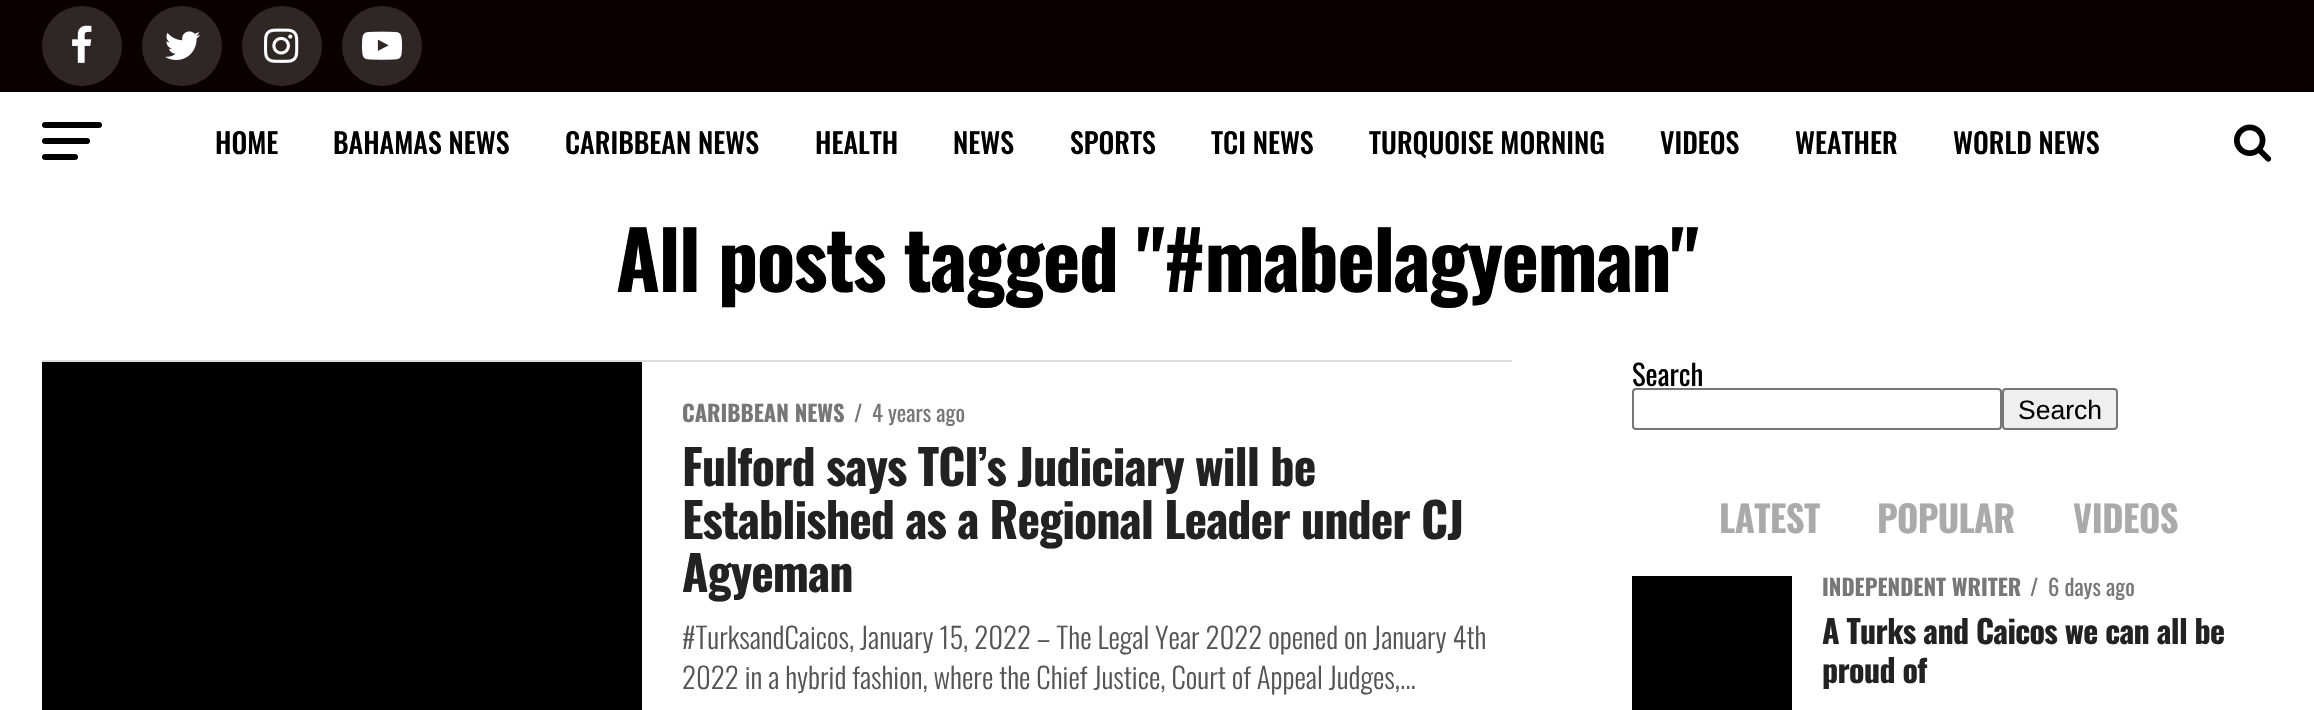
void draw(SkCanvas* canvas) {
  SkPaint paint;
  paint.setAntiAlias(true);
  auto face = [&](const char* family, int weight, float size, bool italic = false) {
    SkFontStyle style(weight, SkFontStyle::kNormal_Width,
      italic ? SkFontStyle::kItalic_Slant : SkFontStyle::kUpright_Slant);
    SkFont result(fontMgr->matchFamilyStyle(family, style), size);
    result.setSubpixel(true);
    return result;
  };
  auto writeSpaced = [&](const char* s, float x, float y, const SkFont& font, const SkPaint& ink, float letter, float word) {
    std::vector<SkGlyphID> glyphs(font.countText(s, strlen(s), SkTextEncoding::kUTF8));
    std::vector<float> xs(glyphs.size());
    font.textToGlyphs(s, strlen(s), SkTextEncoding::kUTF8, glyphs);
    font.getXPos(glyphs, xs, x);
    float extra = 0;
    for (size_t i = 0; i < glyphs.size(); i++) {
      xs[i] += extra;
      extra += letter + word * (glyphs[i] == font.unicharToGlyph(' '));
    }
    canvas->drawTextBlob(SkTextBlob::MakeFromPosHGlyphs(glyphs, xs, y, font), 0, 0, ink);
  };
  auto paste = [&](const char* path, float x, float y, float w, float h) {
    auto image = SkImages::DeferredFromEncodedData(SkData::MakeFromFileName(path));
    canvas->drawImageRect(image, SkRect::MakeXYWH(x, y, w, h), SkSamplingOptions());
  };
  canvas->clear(0xffffffff);
  paint.setColor(0xff0a0000);
  canvas->drawRect(SkRect::MakeXYWH(0, 0, 2314, 92), paint);
  paint.setColor(0xff2f2626);
  canvas->drawCircle(82, 46, 40, paint);
  paste("img/1.png", 72, 25, 20, 38);
  canvas->drawCircle(182, 46, 40, paint);
  paste("img/2.png", 165, 31, 35, 29);
  canvas->drawCircle(282, 46, 40, paint);
  paste("img/3.png", 264, 28, 35, 35);
  canvas->drawCircle(382, 46, 40, paint);
  paste("img/4.png", 362, 31, 40, 29);
  paint.setColor(0xff000000);
  canvas->drawRoundRect(SkRect::MakeXYWH(42, 122, 60, 6), 3, 3, paint);
  canvas->drawRoundRect(SkRect::MakeXYWH(42, 138, 48, 6), 3, 3, paint);
  canvas->drawRoundRect(SkRect::MakeXYWH(42, 154, 36, 6), 3, 3, paint);
  paste("img/5.png", 2234, 124, 38, 38);
  paint.setColor(0xffdddddd);
  canvas->drawRect(SkRect::MakeXYWH(42, 360, 1470, 2), paint);
  paint.setColor(0xff000000);
  canvas->drawRect(SkRect::MakeXYWH(42, 362, 600, 348), paint);
  paint.setStroke(true);
  paint.setStrokeWidth(2);
  paint.setColor(0xff767676);
  canvas->drawRoundRect(SkRect::MakeXYWH(1633, 389, 368, 40), 3, 3, paint);
  paint.setStroke(false);
  paint.setColor(0xffefefef);
  canvas->drawRoundRect(SkRect::MakeXYWH(2003, 389, 114, 40), 3, 3, paint);
  paint.setStroke(true);
  paint.setColor(0xff767676);
  canvas->drawRoundRect(SkRect::MakeXYWH(2003, 389, 114, 40), 3, 3, paint);
  paint.setStroke(false);
  paint.setColor(0xff000000);
  canvas->drawRect(SkRect::MakeXYWH(1632, 576, 160, 134), paint);
  auto f0 = face("Oswald", 500, 28);
  {
    const struct { const char* s; float x, y; } items[] = {
      {"HOME", 215, 154},
      {"BAHAMAS NEWS", 333, 154},
      {"CARIBBEAN NEWS", 565, 154},
      {"HEALTH", 815, 154},
      {"NEWS", 953, 154},
      {"SPORTS", 1070, 154},
      {"TCI NEWS", 1211, 154},
      {"TURQUOISE MORNING", 1369, 154},
      {"VIDEOS", 1660, 154},
      {"WEATHER", 1795, 154},
      {"WORLD NEWS", 1953, 154},
    };
    for (auto [s, x, y] : items) {
      canvas->drawString(s, x, y, f0, paint);
    }
  }
  auto f1 = face("Oswald", 700, 80);
  writeSpaced("All posts tagged \"#mabelagyeman\"", 616, 292, f1, paint, -1.6f, 0);
  auto f2 = face("Oswald", 700, 22.5f);
  paint.setColor(0xff777777);
  canvas->drawString("CARIBBEAN NEWS", 682, 422, f2, paint);
  auto f3 = face("Oswald", 400, 22.5f);
  canvas->drawString("/", 854, 422, f3, paint);
  canvas->drawString("4 years ago", 872, 422, f3, paint);
  auto f4 = face("Oswald", 700, 48);
  paint.setColor(0xff222222);
  {
    const struct { const char* s; float x, y; } items[] = {
      {"Fulford says TCI’s Judiciary will be", 682, 486},
      {"Established as a Regional Leader under CJ", 682, 539},
      {"Agyeman", 682, 592},
    };
    for (auto [s, x, y] : items) {
      writeSpaced(s, x, y, f4, paint, -0.95f, 0);
    }
  }
  auto f5 = face("Oswald", 300, 28.8f);
  paint.setColor(0xff555555);
  canvas->drawString("#TurksandCaicos, January 15, 2022 – The Legal Year 2022 opened on January 4th", 682, 649, f5, paint);
  canvas->drawString("2022 in a hybrid fashion, where the Chief Justice, Court of Appeal Judges,...", 682, 689, f5, paint);
  auto f6 = face("Oswald", 400, 28.8f);
  paint.setColor(0xff000000);
  canvas->drawString("Search", 1632, 386, f6, paint);
  auto f7 = face("Liberation Sans", 400, 26.5f);
  canvas->drawString("Search", 2018, 419, f7, paint);
  auto f8 = face("Oswald", 700, 36.5f);
  paint.setColor(0xffaaaaaa);
  writeSpaced("LATEST", 1719, 533, f8, paint, -0.5f, 0);
  writeSpaced("POPULAR", 1877, 533, f8, paint, -0.75f, 0);
  writeSpaced("VIDEOS", 2073, 533, f8, paint, -0.5f, 0);
  paint.setColor(0xff777777);
  canvas->drawString("INDEPENDENT WRITER", 1822, 596, f2, paint);
  canvas->drawString("/", 2030, 596, f3, paint);
  canvas->drawString("6 days ago", 2048, 596, f3, paint);
  auto f9 = face("Oswald", 700, 32);
  paint.setColor(0xff222222);
  writeSpaced("A Turks and Caicos we can all be", 1822, 644, f9, paint, -0.65f, 0);
  writeSpaced("proud of", 1822, 683, f9, paint, -0.65f, 0);
}
